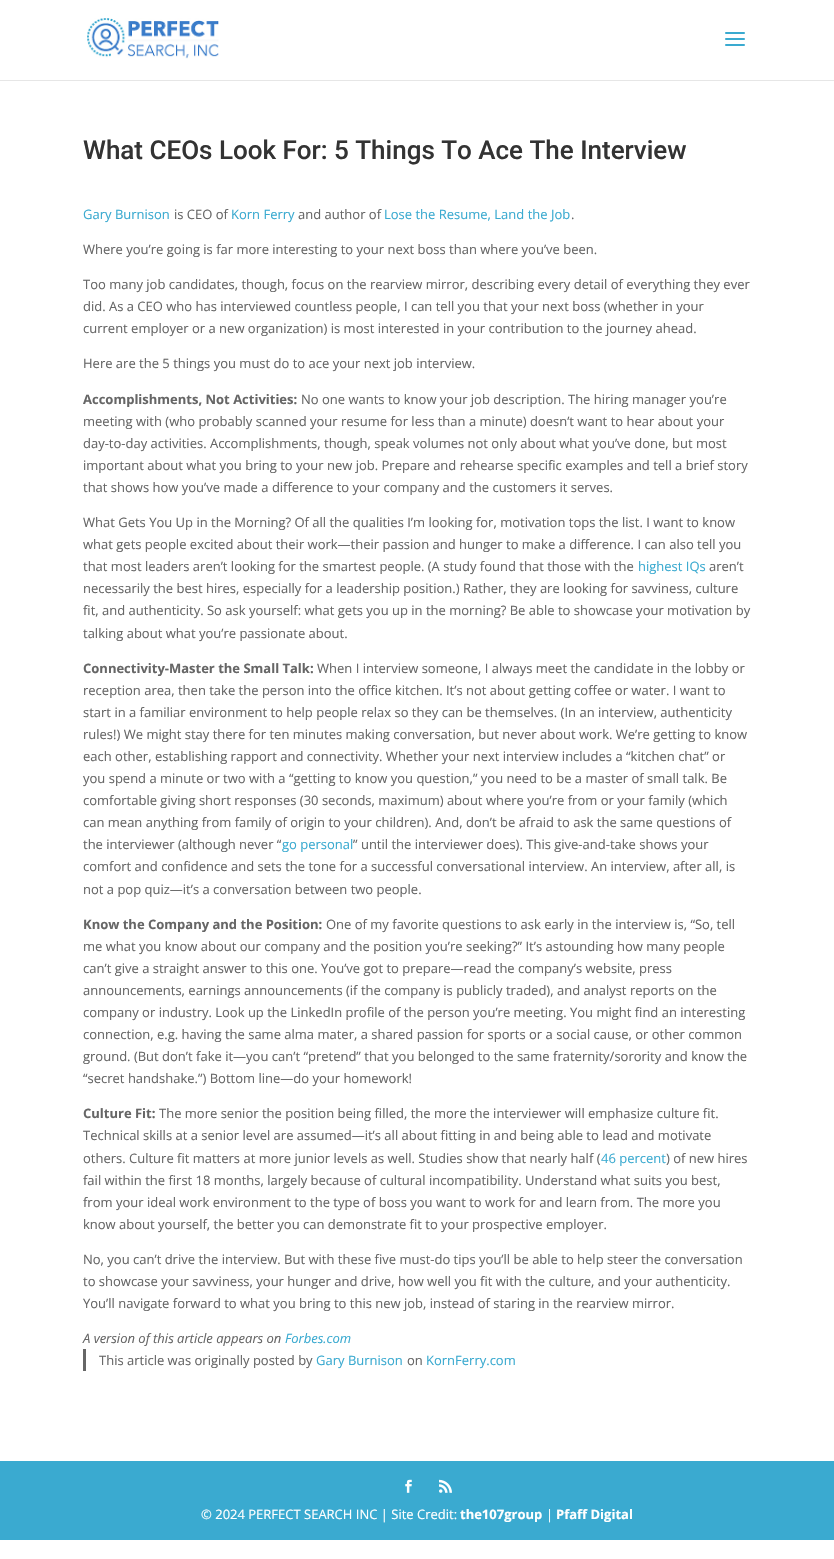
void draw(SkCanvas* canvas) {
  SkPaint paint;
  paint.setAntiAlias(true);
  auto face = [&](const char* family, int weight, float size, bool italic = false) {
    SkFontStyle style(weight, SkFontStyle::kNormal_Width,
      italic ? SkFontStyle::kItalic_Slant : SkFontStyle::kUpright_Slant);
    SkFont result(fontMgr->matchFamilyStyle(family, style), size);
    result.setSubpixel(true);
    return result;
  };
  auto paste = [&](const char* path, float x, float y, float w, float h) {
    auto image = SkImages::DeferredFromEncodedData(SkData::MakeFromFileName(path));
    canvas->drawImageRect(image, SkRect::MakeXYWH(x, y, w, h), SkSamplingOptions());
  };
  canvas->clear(0xffffffff);
  paint.setColor(0xffe6e6e6);
  canvas->drawRect(SkRect::MakeXYWH(0, 80, 834, 1), paint);
  paste("img/1.png", 87, 18, 132, 41);
  paste("img/2.png", 725, 32, 20, 14);
  paint.setColor(0xff666666);
  canvas->drawRect(SkRect::MakeXYWH(83, 1349, 3, 22), paint);
  paint.setColor(0xff3aaad0);
  canvas->drawRect(SkRect::MakeXYWH(0, 1461, 834, 79), paint);
  paste("img/3.png", 405, 1479, 7, 14);
  paste("img/4.png", 439, 1479, 13, 14);
  auto f0 = face("Roboto", 500, 26);
  paint.setColor(0xff333333);
  canvas->drawString("What CEOs Look For: 5 Things To Ace The Interview", 83, 159, f0, paint);
  auto f1 = face("Open Sans", 400, 13);
  paint.setColor(0xff3aaad0);
  canvas->drawString("Gary Burnison", 83, 219, f1, paint);
  paint.setColor(0xff666666);
  canvas->drawString("is CEO of", 174, 219, f1, paint);
  paint.setColor(0xff3aaad0);
  canvas->drawString("Korn Ferry", 231, 219, f1, paint);
  paint.setColor(0xff666666);
  canvas->drawString("and author of", 298, 219, f1, paint);
  paint.setColor(0xff3aaad0);
  canvas->drawString("Lose the Resume, Land the Job", 384, 219, f1, paint);
  paint.setColor(0xff666666);
  {
    const struct { const char* s; float x, y; } items[] = {
      {".", 571, 219},
      {"Where you’re going is far more interesting to your next boss than where you’ve been.", 83, 254},
      {"Too many job candidates, though, focus on the rearview mirror, describing every detail of everything they ever", 83, 289},
      {"did. As a CEO who has interviewed countless people, I can tell you that your next boss (whether in your", 83, 311},
      {"current employer or a new organization) is most interested in your contribution to the journey ahead.", 83, 333},
      {"Here are the 5 things you must do to ace your next job interview.", 83, 368},
    };
    for (auto [s, x, y] : items) {
      canvas->drawString(s, x, y, f1, paint);
    }
  }
  auto f2 = face("Open Sans", 700, 13);
  canvas->drawString("Accomplishments, Not Activities:", 83, 404, f2, paint);
  {
    const struct { const char* s; float x, y; } items[] = {
      {"No one wants to know your job description. The hiring manager you’re", 301, 404},
      {"meeting with (who probably scanned your resume for less than a minute) doesn’t want to hear about your", 83, 426},
      {"day-to-day activities. Accomplishments, though, speak volumes not only about what you’ve done, but most", 83, 448},
      {"important about what you bring to your new job. Prepare and rehearse specific examples and tell a brief story", 83, 470},
      {"that shows how you’ve made a difference to your company and the customers it serves.", 83, 492},
      {"What Gets You Up in the Morning? Of all the qualities I’m looking for, motivation tops the list. I want to know", 83, 527},
      {"what gets people excited about their work—their passion and hunger to make a difference. I can also tell you", 83, 549},
      {"that most leaders aren’t looking for the smartest people. (A study found that those with the", 83, 571},
    };
    for (auto [s, x, y] : items) {
      canvas->drawString(s, x, y, f1, paint);
    }
  }
  paint.setColor(0xff3aaad0);
  canvas->drawString("highest IQs", 638, 571, f1, paint);
  paint.setColor(0xff666666);
  {
    const struct { const char* s; float x, y; } items[] = {
      {"aren’t", 709, 571},
      {"necessarily the best hires, especially for a leadership position.) Rather, they are looking for savviness, culture", 83, 593},
      {"fit, and authenticity. So ask yourself: what gets you up in the morning? Be able to showcase your motivation by", 83, 615},
      {"talking about what you’re passionate about.", 83, 638},
    };
    for (auto [s, x, y] : items) {
      canvas->drawString(s, x, y, f1, paint);
    }
  }
  canvas->drawString("Connectivity-Master the Small Talk:", 83, 673, f2, paint);
  {
    const struct { const char* s; float x, y; } items[] = {
      {"When I interview someone, I always meet the candidate in the lobby or", 317, 673},
      {"reception area, then take the person into the office kitchen. It’s not about getting coffee or water. I want to", 83, 695},
      {"start in a familiar environment to help people relax so they can be themselves. (In an interview, authenticity", 83, 717},
      {"rules!) We might stay there for ten minutes making conversation, but never about work. We’re getting to know", 83, 739},
      {"each other, establishing rapport and connectivity. Whether your next interview includes a “kitchen chat” or", 83, 761},
      {"you spend a minute or two with a “getting to know you question,” you need to be a master of small talk. Be", 83, 783},
      {"comfortable giving short responses (30 seconds, maximum) about where you’re from or your family (which", 83, 805},
      {"can mean anything from family of origin to your children). And, don’t be afraid to ask the same questions of", 83, 827},
      {"the interviewer (although never “", 83, 849},
    };
    for (auto [s, x, y] : items) {
      canvas->drawString(s, x, y, f1, paint);
    }
  }
  paint.setColor(0xff3aaad0);
  canvas->drawString("go personal", 282, 849, f1, paint);
  paint.setColor(0xff666666);
  {
    const struct { const char* s; float x, y; } items[] = {
      {"” until the interviewer does). This give-and-take shows your", 353, 849},
      {"comfort and confidence and sets the tone for a successful conversational interview. An interview, after all, is", 83, 871},
      {"not a pop quiz—it’s a conversation between two people.", 83, 894},
    };
    for (auto [s, x, y] : items) {
      canvas->drawString(s, x, y, f1, paint);
    }
  }
  canvas->drawString("Know the Company and the Position:", 83, 929, f2, paint);
  {
    const struct { const char* s; float x, y; } items[] = {
      {"One of my favorite questions to ask early in the interview is, “So, tell", 326, 929},
      {"me what you know about our company and the position you’re seeking?” It’s astounding how many people", 83, 951},
      {"can’t give a straight answer to this one. You’ve got to prepare—read the company’s website, press", 83, 973},
      {"announcements, earnings announcements (if the company is publicly traded), and analyst reports on the", 83, 995},
      {"company or industry. Look up the LinkedIn profile of the person you’re meeting. You might find an interesting", 83, 1017},
      {"connection, e.g. having the same alma mater, a shared passion for sports or a social cause, or other common", 83, 1039},
      {"ground. (But don’t fake it—you can’t “pretend” that you belonged to the same fraternity/sorority and know the", 83, 1061},
      {"“secret handshake.”) Bottom line—do your homework!", 83, 1083},
    };
    for (auto [s, x, y] : items) {
      canvas->drawString(s, x, y, f1, paint);
    }
  }
  canvas->drawString("Culture Fit:", 83, 1118, f2, paint);
  {
    const struct { const char* s; float x, y; } items[] = {
      {"The more senior the position being filled, the more the interviewer will emphasize culture fit.", 159, 1118},
      {"Technical skills at a senior level are assumed—it’s all about fitting in and being able to lead and motivate", 83, 1140},
      {"others. Culture fit matters at more junior levels as well. Studies show that nearly half (", 83, 1163},
    };
    for (auto [s, x, y] : items) {
      canvas->drawString(s, x, y, f1, paint);
    }
  }
  paint.setColor(0xff3aaad0);
  canvas->drawString("46 percent", 601, 1163, f1, paint);
  paint.setColor(0xff666666);
  {
    const struct { const char* s; float x, y; } items[] = {
      {") of new hires", 666, 1163},
      {"fail within the first 18 months, largely because of cultural incompatibility. Understand what suits you best,", 83, 1185},
      {"from your ideal work environment to the type of boss you want to work for and learn from. The more you", 83, 1207},
      {"know about yourself, the better you can demonstrate fit to your prospective employer.", 83, 1229},
      {"No, you can’t drive the interview. But with these five must-do tips you’ll be able to help steer the conversation", 83, 1264},
      {"to showcase your savviness, your hunger and drive, how well you fit with the culture, and your authenticity.", 83, 1286},
      {"You’ll navigate forward to what you bring to this new job, instead of staring in the rearview mirror.", 83, 1308},
    };
    for (auto [s, x, y] : items) {
      canvas->drawString(s, x, y, f1, paint);
    }
  }
  auto f3 = face("Open Sans", 400, 13, true);
  canvas->drawString("A version of this article appears on", 83, 1343, f3, paint);
  paint.setColor(0xff3aaad0);
  canvas->drawString("Forbes.com", 285, 1343, f3, paint);
  paint.setColor(0xff666666);
  canvas->drawString("This article was originally posted by", 99, 1365, f1, paint);
  paint.setColor(0xff3aaad0);
  canvas->drawString("Gary Burnison", 316, 1365, f1, paint);
  paint.setColor(0xff666666);
  canvas->drawString("on", 407, 1365, f1, paint);
  paint.setColor(0xff3aaad0);
  canvas->drawString("KornFerry.com", 426, 1365, f1, paint);
  paint.setColor(0xffffffff);
  canvas->drawString("© 2024 PERFECT SEARCH INC | Site Credit:", 201, 1519, f1, paint);
  canvas->drawString("the107group", 460, 1519, f2, paint);
  canvas->drawString("|", 546, 1519, f1, paint);
  canvas->drawString("Pfaff Digital", 556, 1519, f2, paint);
}
